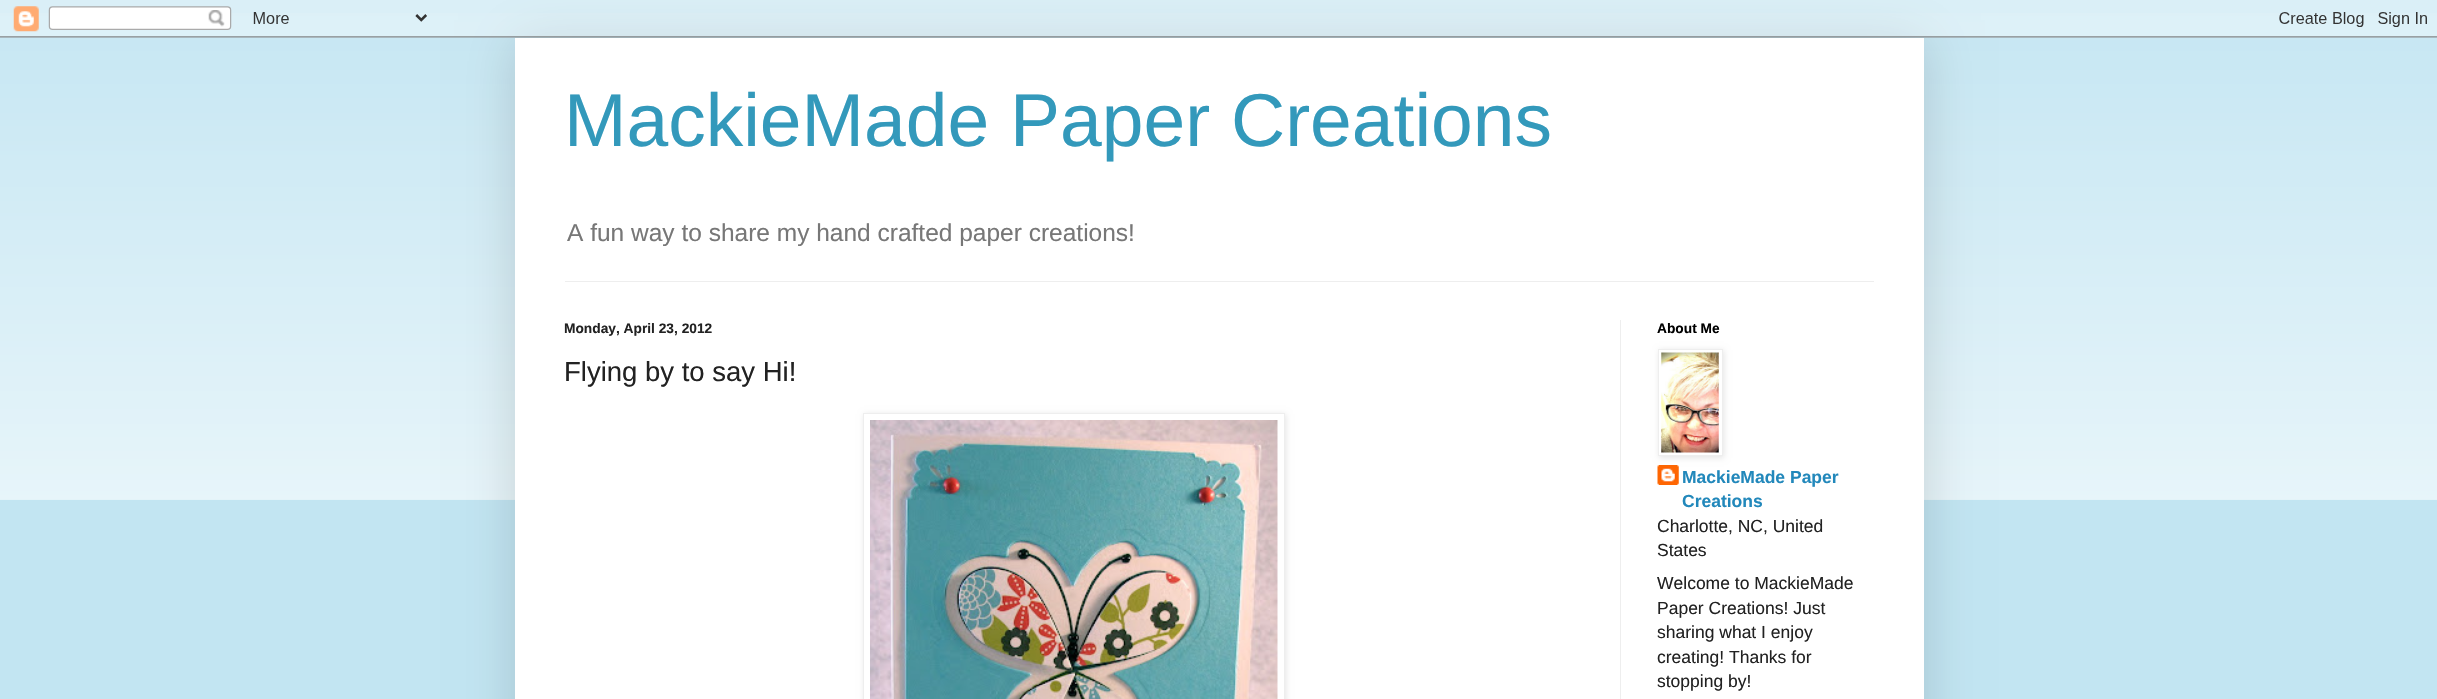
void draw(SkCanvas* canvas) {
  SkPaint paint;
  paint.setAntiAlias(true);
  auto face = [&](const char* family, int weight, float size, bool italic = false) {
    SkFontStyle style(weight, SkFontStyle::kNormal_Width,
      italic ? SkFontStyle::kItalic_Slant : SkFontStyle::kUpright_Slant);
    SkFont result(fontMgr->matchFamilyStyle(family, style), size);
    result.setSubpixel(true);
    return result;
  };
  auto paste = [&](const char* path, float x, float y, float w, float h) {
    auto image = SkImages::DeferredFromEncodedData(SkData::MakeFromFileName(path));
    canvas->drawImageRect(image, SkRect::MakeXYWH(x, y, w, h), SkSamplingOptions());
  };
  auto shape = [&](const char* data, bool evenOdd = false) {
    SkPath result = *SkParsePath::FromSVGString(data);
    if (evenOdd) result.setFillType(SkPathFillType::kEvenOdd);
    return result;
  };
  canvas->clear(0xffc2e5f2);
  paste("img/2.png", 0, 13, 2437, 487);
  paint.setColor(0x26000000);
  paint.setMaskFilter(SkMaskFilter::MakeBlur(kNormal_SkBlurStyle, 25));
  canvas->drawRect(SkRect::MakeXYWH(515, 38, 1409, 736), paint);
  paint.setMaskFilter(nullptr);
  paste("img/1.png", 0, 0, 2437, 38);
  {
    const struct { float x, y, w, h; SkColor color; } items[] = {
      {515, 38, 1409, 661, 0xffffffff},
      {565, 281, 1309, 1, 0xffeeeeee},
      {1620, 320, 1, 379, 0xffeeeeee},
    };
    for (auto [x, y, w, h, color] : items) {
      paint.setColor(color);
      canvas->drawRect(SkRect::MakeXYWH(x, y, w, h), paint);
    }
  }
  canvas->save();
  canvas->clipPath(shape("M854 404H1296V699H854ZM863 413H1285V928H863Z", true), true);
  paint.setColor(0x1a000000);
  paint.setMaskFilter(SkMaskFilter::MakeBlur(kNormal_SkBlurStyle, 3));
  canvas->drawRect(SkRect::MakeXYWH(864, 414, 422, 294), paint);
  paint.setMaskFilter(nullptr);
  canvas->restore();
  paint.setStroke(true);
  paint.setStrokeWidth(1);
  paint.setColor(0xffeeeeee);
  canvas->drawRect(SkRect::MakeXYWH(863.5f, 413.5f, 421, 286), paint);
  paste("img/3.png", 870, 420, 408, 279);
  paste("img/5.png", 1657, 465, 22, 20);
  paint.setStroke(false);
  paint.setColor(0x1a000000);
  paint.setMaskFilter(SkMaskFilter::MakeBlur(kNormal_SkBlurStyle, 3));
  canvas->drawRect(SkRect::MakeXYWH(1659, 350, 65, 108), paint);
  paint.setMaskFilter(nullptr);
  paint.setColor(0xffffffff);
  canvas->drawRect(SkRect::MakeXYWH(1658.5f, 349.5f, 64, 106), paint);
  paint.setStroke(true);
  paint.setColor(0xffeeeeee);
  canvas->drawRect(SkRect::MakeXYWH(1658.5f, 349.5f, 64, 106), paint);
  paste("img/4.png", 1661, 352, 58, 101);
  auto f0 = face("Liberation Sans", 400, 75);
  paint.setStroke(false);
  paint.setColor(0xff3399bb);
  canvas->drawString("MackieMade Paper Creations", 564, 146, f0, paint);
  auto f1 = face("Liberation Sans", 400, 24.5f);
  paint.setColor(0xff777777);
  canvas->drawString("A fun way to share my hand crafted paper creations!", 567, 241, f1, paint);
  auto f2 = face("Liberation Sans", 700, 13.75f);
  paint.setColor(0xff222222);
  canvas->drawString("Monday, April 23, 2012", 564, 333, f2, paint);
  auto f3 = face("Liberation Sans", 400, 27.5f);
  canvas->drawString("Flying by to say Hi!", 564, 381, f3, paint);
  paint.setColor(0xff000000);
  canvas->drawString("About Me", 1657, 333, f2, paint);
  auto f4 = face("Liberation Sans", 700, 17.5f);
  paint.setColor(0xff2288bb);
  canvas->drawString("MackieMade Paper", 1682, 483, f4, paint);
  canvas->drawString("Creations", 1682, 507, f4, paint);
  auto f5 = face("Liberation Sans", 400, 17.5f);
  paint.setColor(0xff222222);
  {
    const struct { const char* s; float x, y; } items[] = {
      {"Charlotte, NC, United", 1657, 532},
      {"States", 1657, 556},
      {"Welcome to MackieMade", 1657, 589},
      {"Paper Creations! Just", 1657, 614},
      {"sharing what I enjoy", 1657, 638},
      {"creating! Thanks for", 1657, 663},
      {"stopping by!", 1657, 687},
    };
    for (auto [s, x, y] : items) {
      canvas->drawString(s, x, y, f5, paint);
    }
  }
}
